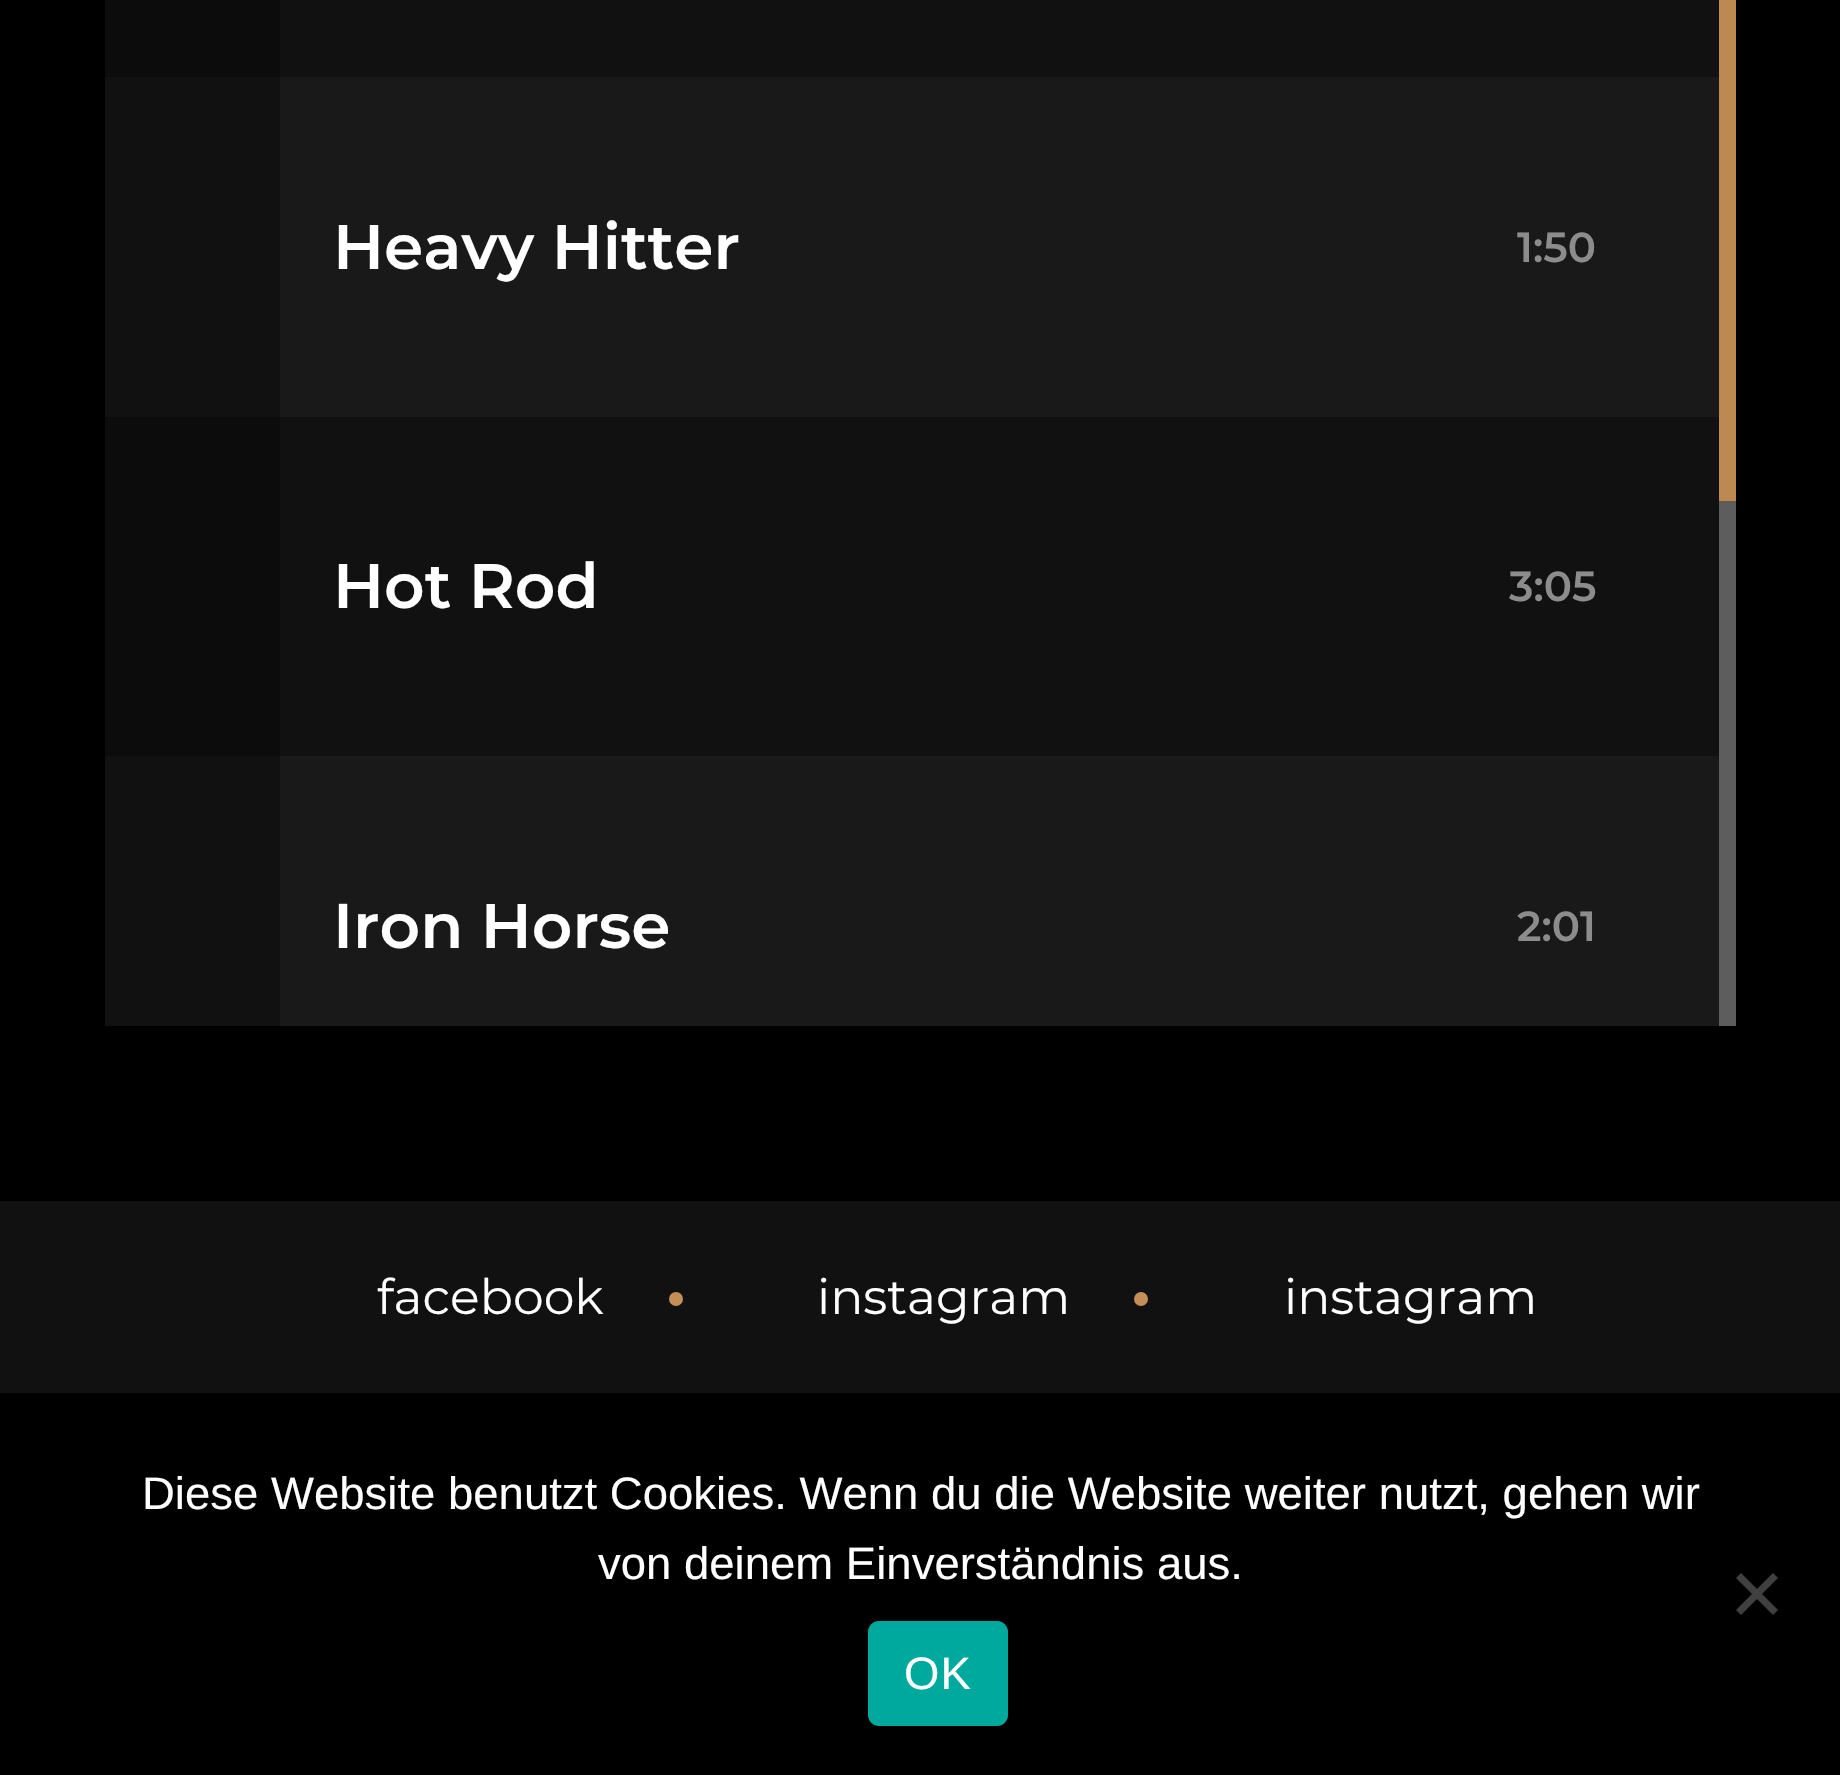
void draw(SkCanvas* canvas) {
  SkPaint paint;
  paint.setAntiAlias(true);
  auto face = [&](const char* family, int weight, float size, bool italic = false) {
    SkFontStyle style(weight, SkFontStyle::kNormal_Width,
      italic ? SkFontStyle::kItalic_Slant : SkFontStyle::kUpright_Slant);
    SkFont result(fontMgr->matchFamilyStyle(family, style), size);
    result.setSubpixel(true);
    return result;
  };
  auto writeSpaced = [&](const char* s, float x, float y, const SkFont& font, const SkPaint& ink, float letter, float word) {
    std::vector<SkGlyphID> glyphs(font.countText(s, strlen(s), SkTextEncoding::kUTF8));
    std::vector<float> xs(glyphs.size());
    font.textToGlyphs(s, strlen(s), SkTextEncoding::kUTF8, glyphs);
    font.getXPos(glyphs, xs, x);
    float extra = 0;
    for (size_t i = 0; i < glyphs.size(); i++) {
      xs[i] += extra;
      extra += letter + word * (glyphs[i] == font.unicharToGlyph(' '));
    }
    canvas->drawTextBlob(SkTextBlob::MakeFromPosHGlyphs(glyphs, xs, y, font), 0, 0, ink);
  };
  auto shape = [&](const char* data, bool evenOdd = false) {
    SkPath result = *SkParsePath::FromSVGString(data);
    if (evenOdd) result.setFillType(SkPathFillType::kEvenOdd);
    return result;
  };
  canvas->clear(0xff000000);
  {
    const struct { float x, y, w, h; SkColor color; } items[] = {
      {280, 0, 1439, 756, 0xff111111},
      {105, 0, 175, 77, 0xff0c0c0c},
      {280, 77, 1439, 340, 0xff191919},
      {105, 77, 175, 340, 0xff111111},
      {105, 417, 175, 339, 0xff0c0c0c},
      {280, 756, 1439, 270, 0xff191919},
      {105, 756, 175, 270, 0xff111111},
      {1719, 501, 17, 525, 0xff5d5d5d},
      {1719, 0, 17, 501, 0xffbc8953},
      {0, 1201, 1840, 192, 0xff111111},
    };
    for (auto [x, y, w, h, color] : items) {
      paint.setColor(color);
      canvas->drawRect(SkRect::MakeXYWH(x, y, w, h), paint);
    }
  }
  paint.setColor(0xffc48f56);
  canvas->drawCircle(676, 1299, 7, paint);
  canvas->drawCircle(1141, 1299, 7, paint);
  paint.setColor(0xff404040);
  canvas->drawPath(shape("M1773 1573L1778 1578L1741 1615L1736 1610Z"), paint);
  canvas->drawPath(shape("M1736 1578L1741 1573L1778 1610L1773 1615Z"), paint);
  paint.setColor(0xff00a99d);
  canvas->drawRoundRect(SkRect::MakeXYWH(868, 1621, 140, 105), 11, 11, paint);
  auto f0 = face("Montserrat", 600, 63);
  paint.setColor(0xffffffff);
  canvas->drawString("Heavy Hitter", 333, 269, f0, paint);
  auto f1 = face("Montserrat", 600, 42);
  paint.setColor(0xff8c8c8c);
  canvas->drawString("1:50", 1517, 262, f1, paint);
  paint.setColor(0xffffffff);
  canvas->drawString("Hot Rod", 333, 608, f0, paint);
  paint.setColor(0xff8c8c8c);
  canvas->drawString("3:05", 1509, 601, f1, paint);
  paint.setColor(0xffffffff);
  canvas->drawString("Iron Horse", 333, 948, f0, paint);
  paint.setColor(0xff8c8c8c);
  canvas->drawString("2:01", 1517, 941, f1, paint);
  auto f2 = face("Montserrat", 400, 49);
  paint.setColor(0xffffffff);
  {
    const struct { const char* s; float x, y; } items[] = {
      {"facebook", 377, 1314},
      {"instagram", 817, 1314},
      {"instagram", 1284, 1314},
    };
    for (auto [s, x, y] : items) {
      canvas->drawString(s, x, y, f2, paint);
    }
  }
  auto f3 = face("Liberation Sans", 400, 45.5f);
  canvas->drawString("Diese Website benutzt Cookies. Wenn du die Website weiter nutzt, gehen wir", 142, 1509, f3, paint);
  canvas->drawString("von deinem Einverständnis aus.", 598, 1579, f3, paint);
  writeSpaced("OK", 904, 1689, f3, paint, 1, 0);
}
